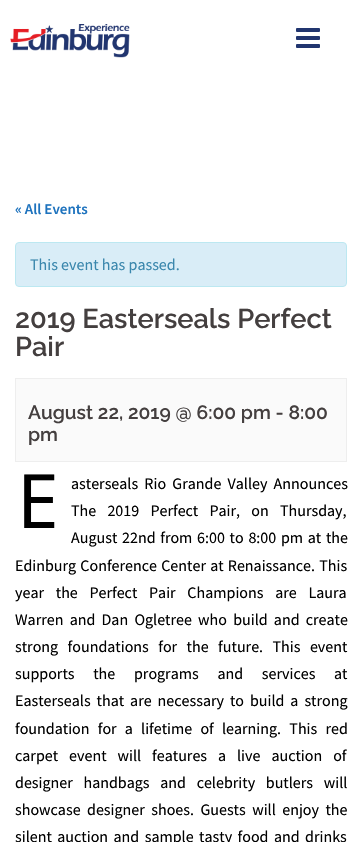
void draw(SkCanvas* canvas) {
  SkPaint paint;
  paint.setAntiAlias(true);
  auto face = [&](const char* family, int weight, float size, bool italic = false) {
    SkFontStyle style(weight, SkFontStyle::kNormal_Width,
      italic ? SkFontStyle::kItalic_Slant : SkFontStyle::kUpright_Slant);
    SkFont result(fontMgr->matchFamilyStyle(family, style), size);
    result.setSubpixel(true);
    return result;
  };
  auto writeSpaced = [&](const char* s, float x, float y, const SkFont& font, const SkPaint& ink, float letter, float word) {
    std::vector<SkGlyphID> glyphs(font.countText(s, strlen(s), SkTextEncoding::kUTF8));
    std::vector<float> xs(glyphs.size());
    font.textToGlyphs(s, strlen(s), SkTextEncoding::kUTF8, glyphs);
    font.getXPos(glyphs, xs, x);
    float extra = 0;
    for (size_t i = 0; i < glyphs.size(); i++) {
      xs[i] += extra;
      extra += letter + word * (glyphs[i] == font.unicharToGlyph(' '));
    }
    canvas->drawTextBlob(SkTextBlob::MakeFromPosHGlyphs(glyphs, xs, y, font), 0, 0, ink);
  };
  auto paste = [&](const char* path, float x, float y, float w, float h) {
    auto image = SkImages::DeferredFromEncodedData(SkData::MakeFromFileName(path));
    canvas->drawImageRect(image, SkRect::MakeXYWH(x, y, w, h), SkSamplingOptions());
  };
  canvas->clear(0xffffffff);
  paste("img/1.png", 10, 24, 120, 34);
  paste("img/2.png", 296, 28, 24, 20);
  paint.setColor(0xffd9edf7);
  canvas->drawRoundRect(SkRect::MakeXYWH(15.5f, 242.5f, 331, 44), 3.5f, 3.5f, paint);
  paint.setStroke(true);
  paint.setStrokeWidth(1);
  paint.setColor(0xffbce8f1);
  canvas->drawRoundRect(SkRect::MakeXYWH(15.5f, 242.5f, 331, 44), 3.5f, 3.5f, paint);
  paint.setStroke(false);
  paint.setColor(0xfffafafa);
  canvas->drawRect(SkRect::MakeXYWH(15.5f, 378.5f, 331, 83), paint);
  paint.setStroke(true);
  paint.setColor(0xffeeeeee);
  canvas->drawRect(SkRect::MakeXYWH(15.5f, 378.5f, 331, 83), paint);
  auto f0 = face("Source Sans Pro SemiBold", 600, 15);
  paint.setStroke(false);
  paint.setColor(0xff1e73be);
  canvas->drawString("« All Events", 15, 214, f0, paint);
  auto f1 = face("Source Sans Pro", 400, 16);
  paint.setColor(0xff3a87ad);
  canvas->drawString("This event has passed.", 30, 270, f1, paint);
  auto f2 = face("Raleway", 600, 27.25f);
  paint.setColor(0xff443f3f);
  canvas->drawString("2019 Easterseals Perfect", 15, 328, f2, paint);
  canvas->drawString("Pair", 15, 356, f2, paint);
  auto f3 = face("Raleway", 600, 19.25f);
  canvas->drawString("August 22, 2019 @ 6:00 pm - 8:00", 28, 419, f3, paint);
  canvas->drawString("pm", 28, 441, f3, paint);
  auto f4 = face("Noto Sans", 400, 75);
  paint.setColor(0xff000000);
  canvas->drawString("E", 17, 528, f4, paint);
  writeSpaced("asterseals Rio Grande Valley Announces", 71, 489, f1, paint, 0, 3);
  writeSpaced("The 2019 Perfect Pair, on Thursday,", 71, 516, f1, paint, 0, 8);
  writeSpaced("August 22nd from 6:00 to 8:00 pm at the", 71, 543, f1, paint, 0, 1.5f);
  writeSpaced("Edinburg Conference Center at Renaissance. This", 15, 571, f1, paint, 0, 1);
  writeSpaced("year the Perfect Pair Champions are Laura", 15, 598, f1, paint, 0, 8.5f);
  writeSpaced("Warren and Dan Ogletree who build and create", 15, 625, f1, paint, 0, 3);
  writeSpaced("strong foundations for the future. This event", 15, 652, f1, paint, 0, 6.25f);
  writeSpaced("supports the programs and services at", 15, 679, f1, paint, 0, 15.5f);
  writeSpaced("Easterseals that are necessary to build a strong", 15, 706, f1, paint, 0, 2.75f);
  writeSpaced("foundation for a lifetime of learning. This red", 15, 734, f1, paint, 0, 5);
  writeSpaced("carpet event will features a live auction of", 15, 761, f1, paint, 0, 7.75f);
  writeSpaced("designer handbags and celebrity butlers will", 15, 788, f1, paint, 0, 7.5f);
  writeSpaced("showcase designer shoes. Guests will enjoy the", 15, 815, f1, paint, 0, 3.25f);
  writeSpaced("silent auction and sample tasty food and drinks", 15, 842, f1, paint, 0, 2.25f);
}
